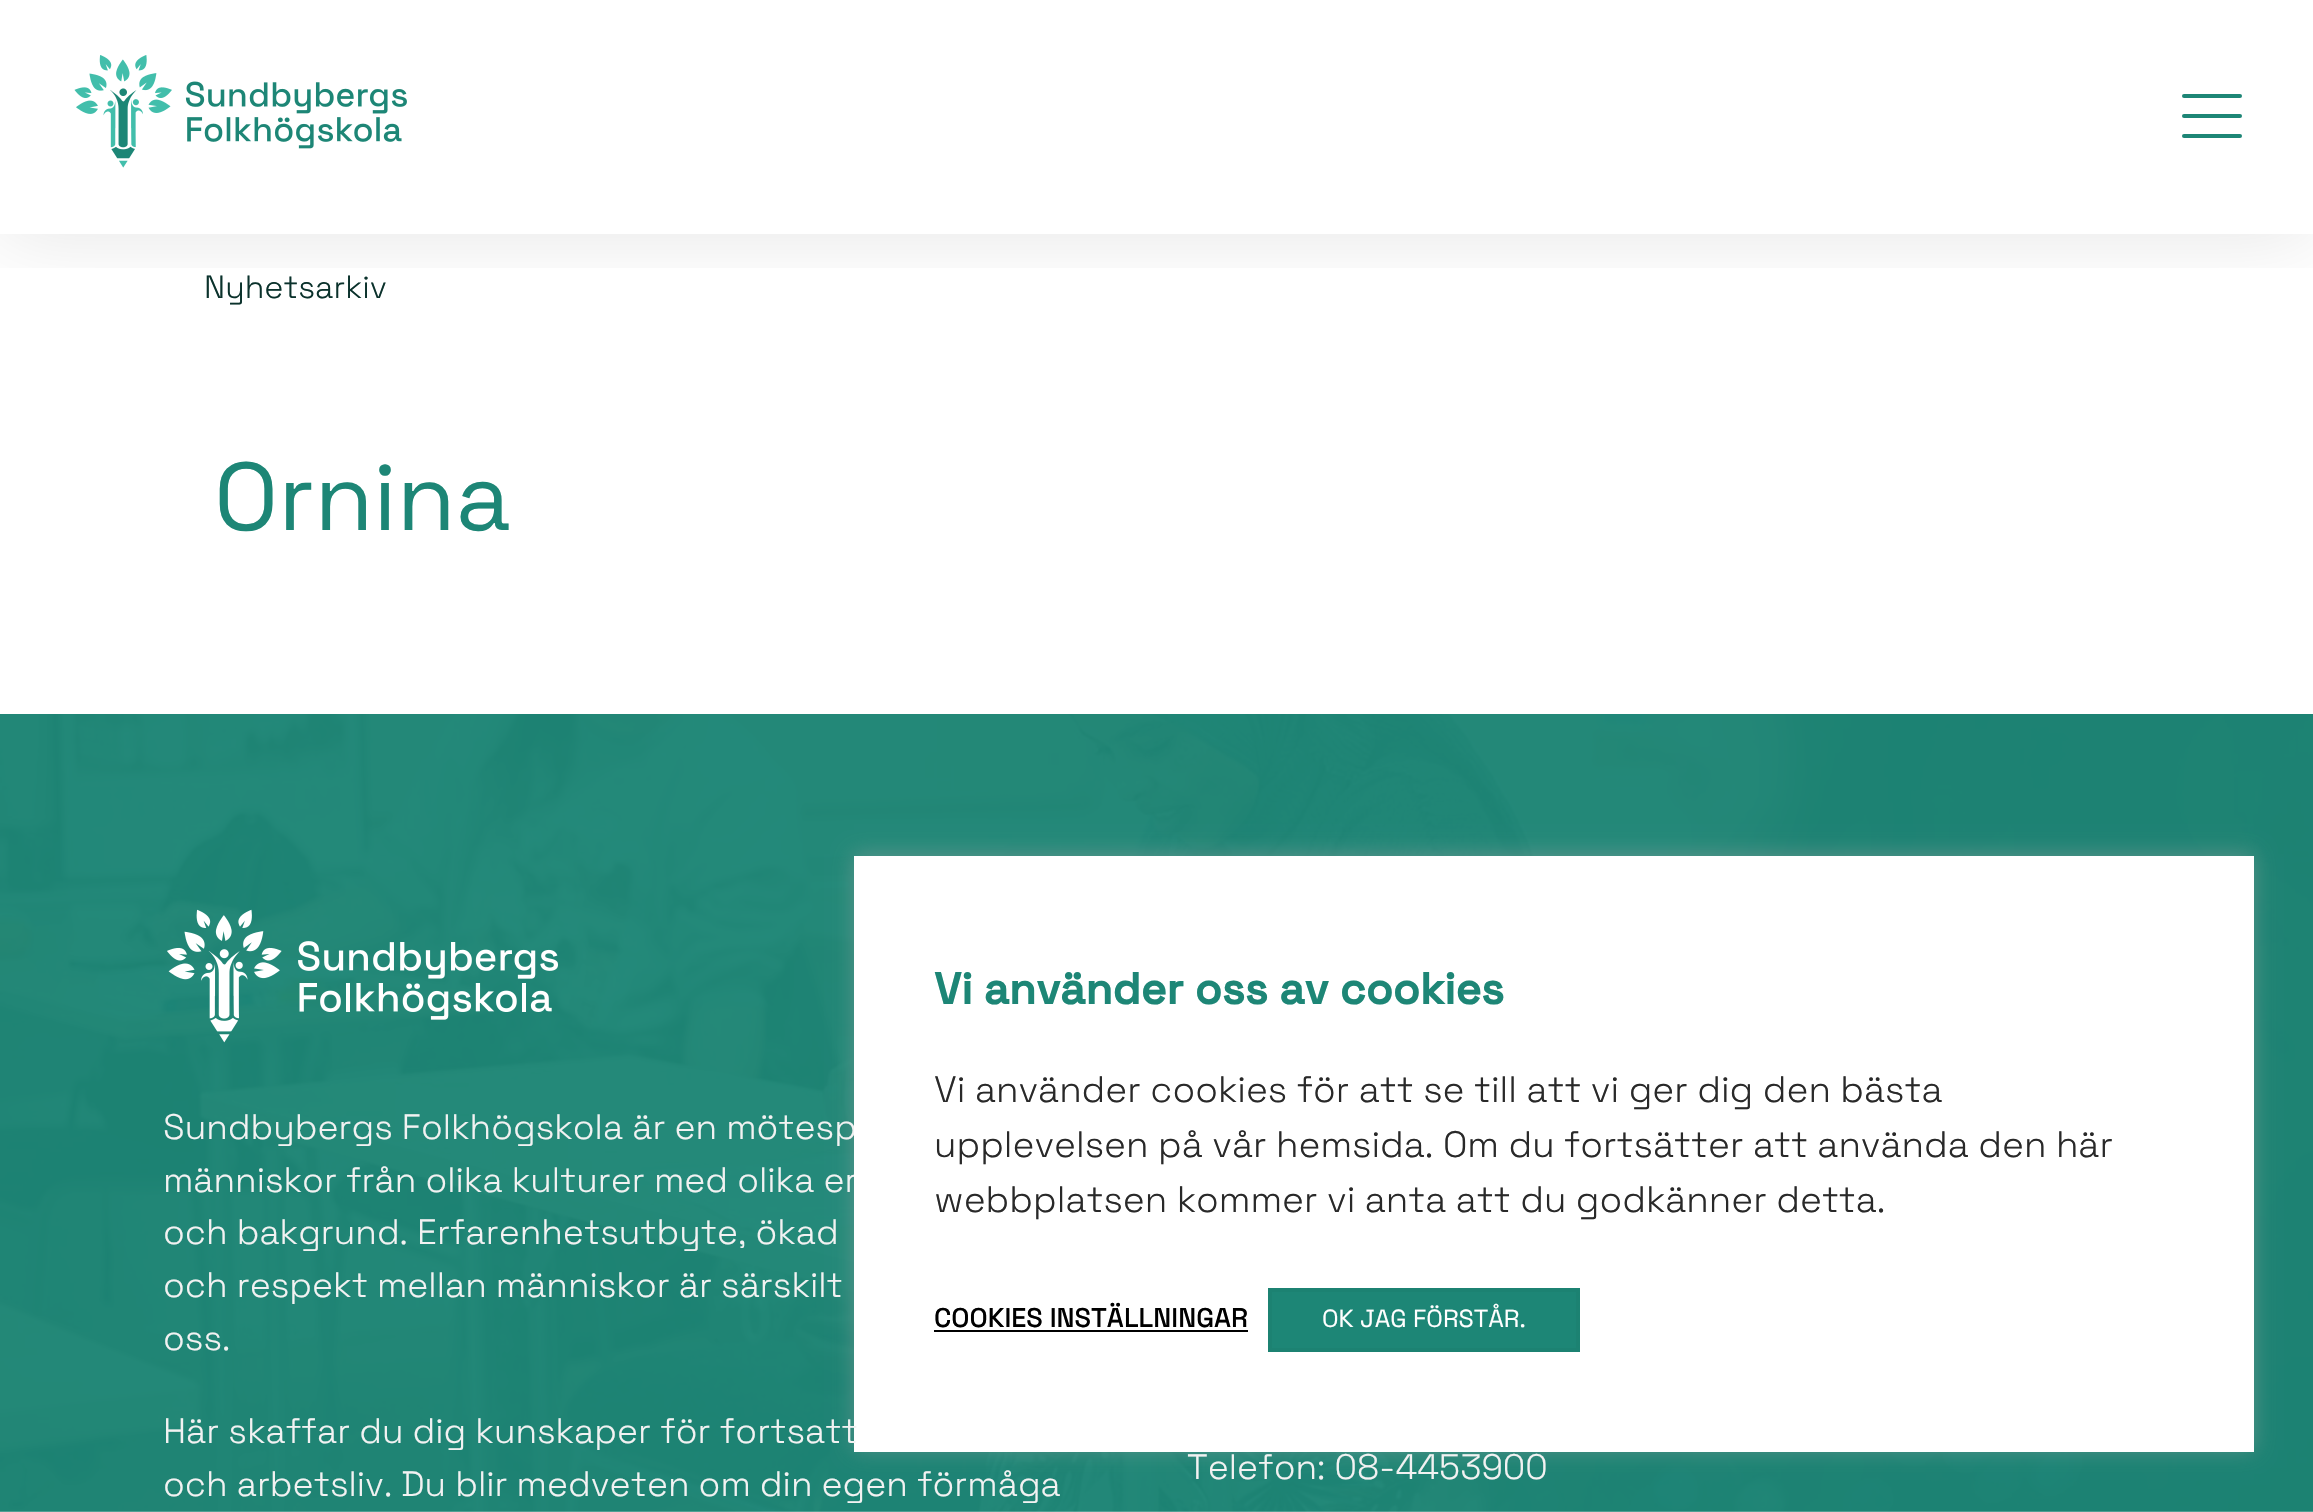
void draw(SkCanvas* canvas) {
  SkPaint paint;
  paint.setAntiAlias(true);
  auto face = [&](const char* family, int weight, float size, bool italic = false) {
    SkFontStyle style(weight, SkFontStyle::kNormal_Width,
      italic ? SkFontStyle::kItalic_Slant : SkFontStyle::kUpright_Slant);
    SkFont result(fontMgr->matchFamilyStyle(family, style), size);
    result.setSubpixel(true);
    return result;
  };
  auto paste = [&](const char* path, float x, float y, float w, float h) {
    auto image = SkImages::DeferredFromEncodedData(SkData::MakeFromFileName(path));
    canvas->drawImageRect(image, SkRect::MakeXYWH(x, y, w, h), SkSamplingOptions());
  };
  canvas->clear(0xffffffff);
  canvas->save();
  canvas->clipRect(SkRect::MakeXYWH(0, 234, 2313, 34));
  paint.setColor(0x1a000000);
  paint.setMaskFilter(SkMaskFilter::MakeBlur(kNormal_SkBlurStyle, 40));
  canvas->drawRect(SkRect::MakeXYWH(0, 0, 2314, 234), paint);
  paint.setMaskFilter(nullptr);
  canvas->restore();
  paste("img/1.png", 74, 55, 333, 113);
  paint.setColor(0xff1d8676);
  canvas->drawRoundRect(SkRect::MakeXYWH(2182, 114, 60, 4), 2, 2, paint);
  canvas->drawRoundRect(SkRect::MakeXYWH(2182, 94, 60, 4), 2, 2, paint);
  canvas->drawRoundRect(SkRect::MakeXYWH(2182, 134, 60, 4), 2, 2, paint);
  paste("img/2.png", 0, 714, 2313, 798);
  paint.setColor(0x66acabab);
  paint.setMaskFilter(SkMaskFilter::MakeBlur(kNormal_SkBlurStyle, 10));
  canvas->drawRect(SkRect::MakeXYWH(854, 854, 1400, 596), paint);
  paint.setMaskFilter(nullptr);
  paste("img/3.png", 167, 909, 391, 134);
  auto f0 = face("Space Grotesk", 300, 32);
  paint.setColor(0xff0b322c);
  canvas->drawString("Nyhetsarkiv", 204, 298, f0, paint);
  auto f1 = face("Space Grotesk", 400, 96);
  paint.setColor(0xff1d8676);
  canvas->drawString("Ornina", 214, 530, f1, paint);
  auto f2 = face("Space Grotesk", 300, 35.2f);
  paint.setColor(0xfff2f2f2);
  canvas->drawString("Sundbybergs Folkhögskola är en mötesp", 163, 1139, f2, paint);
  canvas->drawString("människor från olika kulturer med olika er", 163, 1192, f2, paint);
  paint.setColor(0xffffffff);
  canvas->drawRect(SkRect::MakeXYWH(854, 856, 1400, 596), paint);
  paint.setColor(0xff1d8676);
  canvas->drawRect(SkRect::MakeXYWH(1270, 1290, 308, 60), paint);
  paint.setStroke(true);
  paint.setStrokeWidth(4);
  paint.setColor(0xff1c8272);
  canvas->drawRect(SkRect::MakeXYWH(1270, 1290, 308, 60), paint);
  auto f3 = face("Space Grotesk", 400, 24.75f);
  paint.setStroke(false);
  paint.setColor(0xffffffff);
  canvas->drawString("OK JAG FÖRSTÅR.", 1322, 1327, f3, paint);
  auto f4 = face("Space Grotesk", 500, 27);
  paint.setColor(0xff000000);
  canvas->drawString("COOKIES INSTÄLLNINGAR", 934, 1327, f4, paint);
  canvas->drawRect(SkRect::MakeXYWH(934, 1330, 314, 2), paint);
  auto f5 = face("Space Grotesk", 300, 36.7f);
  paint.setColor(0xff292929);
  {
    const struct { const char* s; float x, y; } items[] = {
      {"webbplatsen kommer vi anta att du godkänner detta.", 934, 1212},
      {"upplevelsen på vår hemsida. Om du fortsätter att använda den här", 934, 1157},
      {"Vi använder cookies för att se till att vi ger dig den bästa", 934, 1102},
    };
    for (auto [s, x, y] : items) {
      canvas->drawString(s, x, y, f5, paint);
    }
  }
  auto f6 = face("Space Grotesk", 700, 44);
  paint.setColor(0xff1d8676);
  canvas->drawString("Vi använder oss av cookies", 934, 1004, f6, paint);
  paint.setColor(0xfff2f2f2);
  {
    const struct { const char* s; float x, y; } items[] = {
      {"och bakgrund. Erfarenhetsutbyte, ökad", 163, 1244},
      {"och respekt mellan människor är särskilt", 163, 1297},
      {"oss.", 163, 1350},
      {"Här skaffar du dig kunskaper för fortsatt", 163, 1443},
      {"och arbetsliv. Du blir medveten om din egen förmåga", 163, 1496},
      {"Telefon: 08-4453900", 1187, 1479},
    };
    for (auto [s, x, y] : items) {
      canvas->drawString(s, x, y, f2, paint);
    }
  }
}
